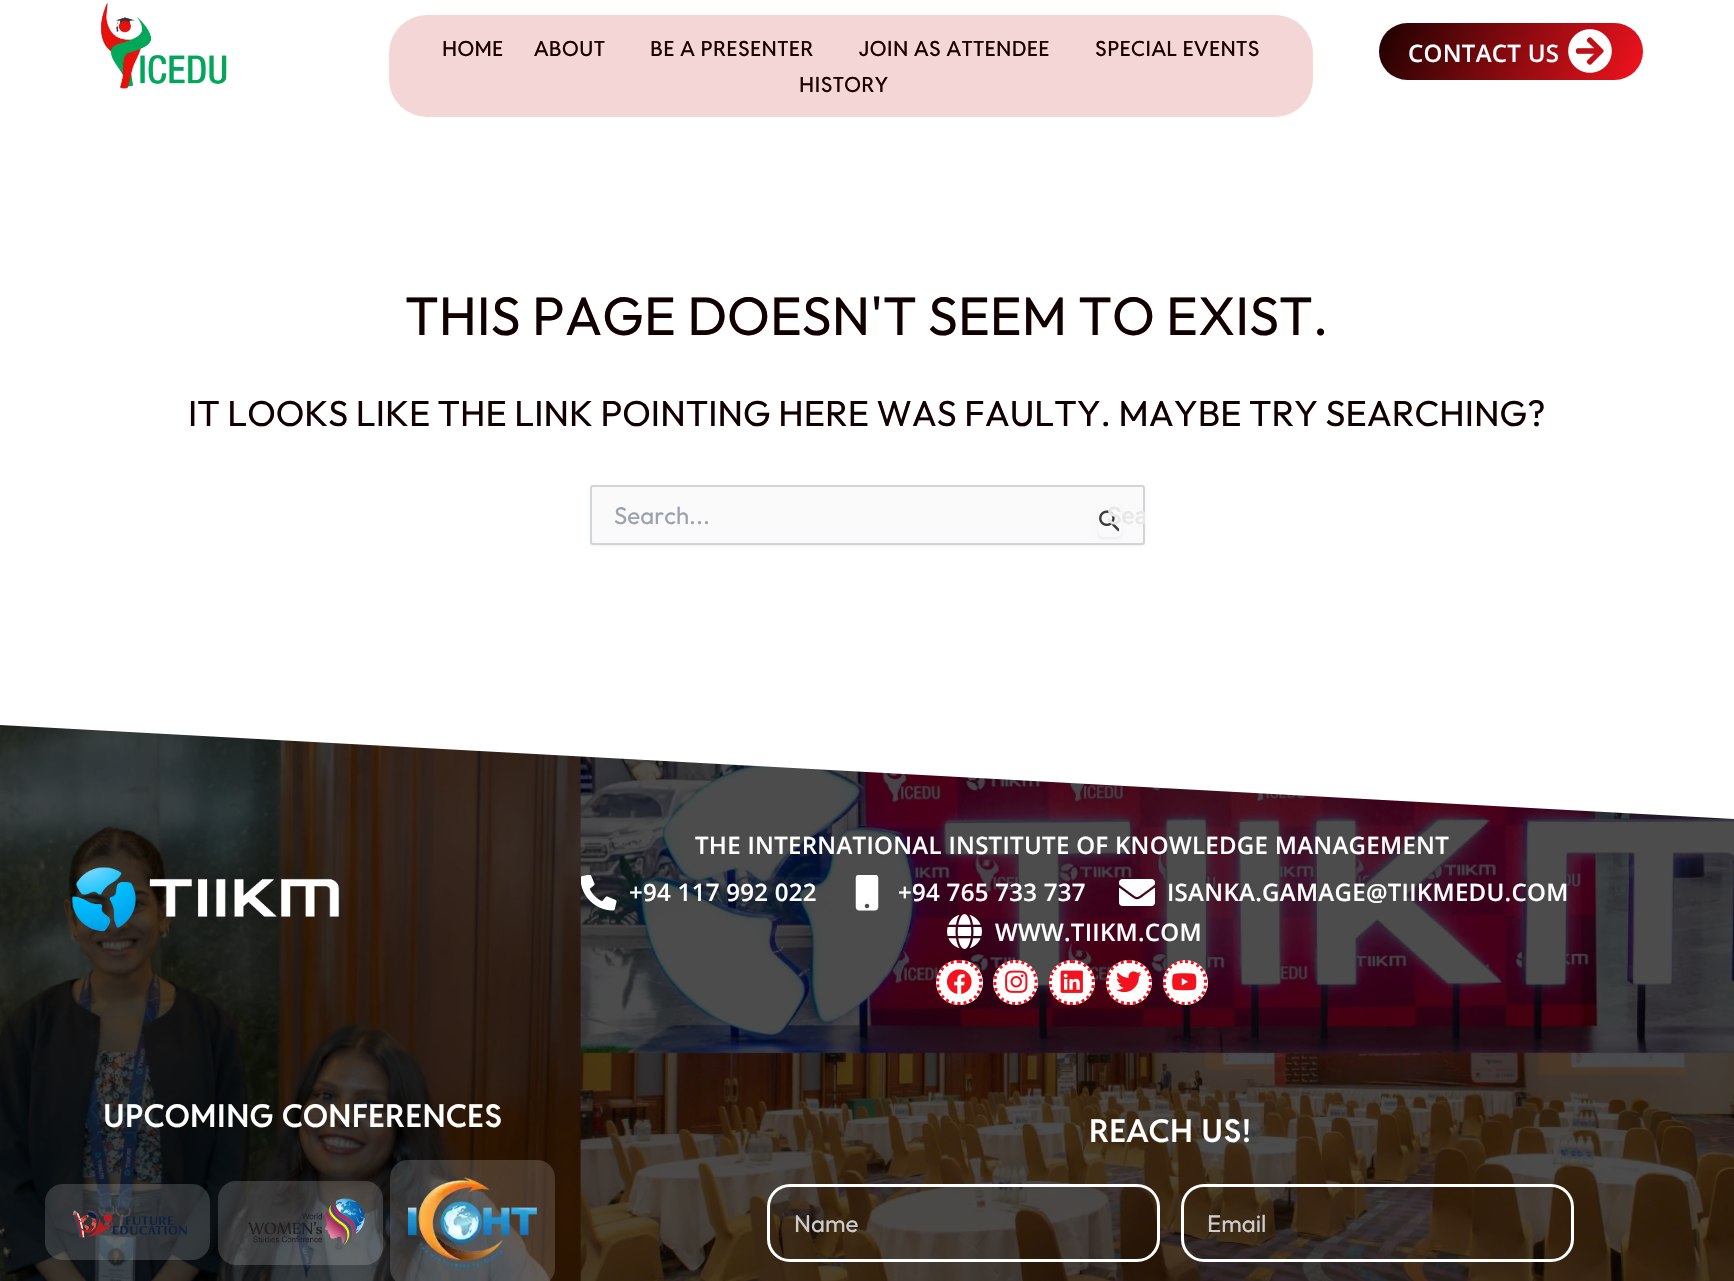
void draw(SkCanvas* canvas) {
  SkPaint paint;
  paint.setAntiAlias(true);
  auto face = [&](const char* family, int weight, float size, bool italic = false) {
    SkFontStyle style(weight, SkFontStyle::kNormal_Width,
      italic ? SkFontStyle::kItalic_Slant : SkFontStyle::kUpright_Slant);
    SkFont result(fontMgr->matchFamilyStyle(family, style), size);
    result.setSubpixel(true);
    return result;
  };
  auto writeSpaced = [&](const char* s, float x, float y, const SkFont& font, const SkPaint& ink, float letter, float word) {
    std::vector<SkGlyphID> glyphs(font.countText(s, strlen(s), SkTextEncoding::kUTF8));
    std::vector<float> xs(glyphs.size());
    font.textToGlyphs(s, strlen(s), SkTextEncoding::kUTF8, glyphs);
    font.getXPos(glyphs, xs, x);
    float extra = 0;
    for (size_t i = 0; i < glyphs.size(); i++) {
      xs[i] += extra;
      extra += letter + word * (glyphs[i] == font.unicharToGlyph(' '));
    }
    canvas->drawTextBlob(SkTextBlob::MakeFromPosHGlyphs(glyphs, xs, y, font), 0, 0, ink);
  };
  auto paste = [&](const char* path, float x, float y, float w, float h) {
    auto image = SkImages::DeferredFromEncodedData(SkData::MakeFromFileName(path));
    canvas->drawImageRect(image, SkRect::MakeXYWH(x, y, w, h), SkSamplingOptions());
  };
  auto shape = [&](const char* data, bool evenOdd = false) {
    SkPath result = *SkParsePath::FromSVGString(data);
    if (evenOdd) result.setFillType(SkPathFillType::kEvenOdd);
    return result;
  };
  canvas->clear(0xffffffff);
  paste("img/1.png", 101, 2, 126, 87);
  paint.setColor(0xfff5d6d6);
  canvas->drawRoundRect(SkRect::MakeXYWH(389, 15, 924, 102), 38, 38, paint);
  {
    const SkColor colors[] = {0xff1c0101, 0xfff2131e};
    const float stops[] = {0, 1};
    const SkPoint ends[] = {{1391, -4.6f}, {1630, 107}};
    paint.setShader(SkGradientShader::MakeLinear(ends, colors, stops, 2, SkTileMode::kClamp));
    paint.setAlpha(255);
  }
  canvas->drawRoundRect(SkRect::MakeXYWH(1379, 23, 264, 57), 28.5f, 28.5f, paint);
  paste("img/2.png", 1568, 29, 44, 44);
  paint.setShader(nullptr);
  paint.setColor(0x0d000000);
  paint.setMaskFilter(SkMaskFilter::MakeBlur(kNormal_SkBlurStyle, 1.5f));
  canvas->drawRoundRect(SkRect::MakeXYWH(590, 486, 555, 60), 3, 3, paint);
  paint.setMaskFilter(nullptr);
  paint.setColor(0xfffafafa);
  canvas->drawRoundRect(SkRect::MakeXYWH(591, 486, 553, 58), 2, 2, paint);
  paint.setStroke(true);
  paint.setStrokeWidth(2);
  paint.setColor(0xffd1d5db);
  canvas->drawRoundRect(SkRect::MakeXYWH(591, 486, 553, 58), 2, 2, paint);
  canvas->save();
  canvas->clipPath(shape("M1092 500H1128V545H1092ZM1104 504H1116C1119.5 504 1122 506.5 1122 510V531C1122 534.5 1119.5 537 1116 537H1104C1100.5 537 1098 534.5 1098 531V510C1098 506.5 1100.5 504 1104 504Z", true), true);
  paint.setStroke(false);
  paint.setColor(0x0d000000);
  paint.setMaskFilter(SkMaskFilter::MakeBlur(kNormal_SkBlurStyle, 1.5f));
  canvas->drawRoundRect(SkRect::MakeXYWH(1098, 506, 24, 33), 6, 6, paint);
  paint.setMaskFilter(nullptr);
  canvas->restore();
  paste("img/3.png", 1099, 510, 20, 22);
  paste("img/4.png", 0, 725, 1734, 556);
  canvas->save();
  canvas->clipRect(SkRect::MakeXYWH(0, 719, 1734, 100));
  paint.setColor(0xffffffff);
  canvas->drawPath(shape("M-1 725V718H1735V819Z"), paint);
  canvas->restore();
  paste("img/5.png", 72, 867, 268, 65);
  paste("img/6.png", 581, 875, 36, 36);
  paste("img/7.png", 855, 875, 24, 36);
  paste("img/8.png", 1119, 879, 36, 27);
  paste("img/9.png", 947, 914, 35, 35);
  canvas->drawRoundRect(SkRect::MakeXYWH(936, 960, 47, 45), 22.5f, 22.5f, paint);
  paint.setStroke(true);
  paint.setStrokeWidth(3);
  paint.setColor(0xfff2131e);
  paint.setPathEffect(SkDashPathEffect::Make({{3, 3}}, 0));
  canvas->drawPath(shape("M959 961.5C988 961.5 988 1003.5 959 1003.5C930.5 1003.5 930.5 961.5 959 961.5Z"), paint);
  paint.setPathEffect(nullptr);
  paste("img/10.png", 947, 969, 25, 25);
  paint.setStroke(false);
  paint.setColor(0xffffffff);
  canvas->drawCircle(1015.5f, 982.5f, 22.5f, paint);
  paint.setStroke(true);
  paint.setColor(0xfff2131e);
  paint.setPathEffect(SkDashPathEffect::Make({{3, 3}}, 0));
  canvas->drawPath(shape("M1015.5 961.5C1043 961.5 1043 1003.5 1015.5 1003.5C988 1003.5 988 961.5 1015.5 961.5Z"), paint);
  paint.setPathEffect(nullptr);
  paste("img/11.png", 1005, 970, 23, 23);
  paint.setStroke(false);
  paint.setColor(0xffffffff);
  canvas->drawRoundRect(SkRect::MakeXYWH(1049, 960, 46, 45), 22.5f, 22.5f, paint);
  paint.setStroke(true);
  paint.setColor(0xfff2131e);
  paint.setPathEffect(SkDashPathEffect::Make({{3, 3}}, 0));
  canvas->drawPath(shape("M1072 961.5C1100.5 961.5 1100.5 1003.5 1072 1003.5C1043 1003.5 1043 961.5 1072 961.5Z"), paint);
  paint.setPathEffect(nullptr);
  paste("img/12.png", 1060, 970, 23, 23);
  paint.setStroke(false);
  paint.setColor(0xffffffff);
  canvas->drawRoundRect(SkRect::MakeXYWH(1106, 960, 46, 45), 22.5f, 22.5f, paint);
  paint.setStroke(true);
  paint.setColor(0xfff2131e);
  paint.setPathEffect(SkDashPathEffect::Make({{3, 3}}, 0));
  canvas->drawPath(shape("M1129 961.5C1157.5 961.5 1157.5 1003.5 1129 1003.5C1100 1003.5 1100 961.5 1129 961.5Z"), paint);
  paint.setPathEffect(nullptr);
  paste("img/13.png", 1116, 971, 26, 22);
  paint.setStroke(false);
  paint.setColor(0xffffffff);
  canvas->drawCircle(1185.5f, 982.5f, 22.5f, paint);
  paint.setStroke(true);
  paint.setColor(0xfff2131e);
  paint.setPathEffect(SkDashPathEffect::Make({{3, 3}}, 0));
  canvas->drawPath(shape("M1185 961.5C1212.5 961.5 1212.5 1003.5 1185 1003.5C1157.5 1003.5 1157.5 961.5 1185 961.5Z"), paint);
  paint.setPathEffect(nullptr);
  paste("img/14.png", 1172, 973, 25, 18);
  paint.setStroke(false);
  paint.setColor(0x29ffffff);
  canvas->drawRoundRect(SkRect::MakeXYWH(45, 1184, 165, 76), 18, 18, paint);
  paste("img/15.png", 72, 1210, 115, 28);
  canvas->drawRoundRect(SkRect::MakeXYWH(218, 1181, 165, 84), 18, 18, paint);
  paste("img/16.png", 248, 1198, 117, 47);
  canvas->drawRoundRect(SkRect::MakeXYWH(390, 1160, 165, 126), 18, 18, paint);
  paste("img/17.png", 408, 1177, 130, 91);
  paint.setStroke(true);
  paint.setColor(0xffffffff);
  canvas->drawRoundRect(SkRect::MakeXYWH(768.5f, 1185.5f, 390, 75), 21.5f, 21.5f, paint);
  canvas->drawRoundRect(SkRect::MakeXYWH(1182.5f, 1185.5f, 390, 75), 21.5f, 21.5f, paint);
  auto f0 = face("Reddit Sans", 500, 21);
  paint.setStroke(false);
  paint.setColor(0xff1c0101);
  {
    const struct { const char* s; float x, y; } items[] = {
      {"HOME", 442, 56},
      {"ABOUT", 534, 56},
      {"BE A PRESENTER", 650, 56},
      {"JOIN AS ATTENDEE", 859, 56},
      {"SPECIAL EVENTS", 1095, 56},
      {"HISTORY", 799, 92},
    };
    for (auto [s, x, y] : items) {
      writeSpaced(s, x, y, f0, paint, 0.3f, 0);
    }
  }
  auto f1 = face("Open Sans", 600, 24);
  paint.setColor(0xffffffff);
  writeSpaced("CONTACT US", 1408, 62, f1, paint, 0.3f, 0);
  auto f2 = face("Outfit", 100, 54);
  paint.setColor(0xff120001);
  canvas->drawString("THIS PAGE DOESN'T SEEM TO EXIST.", 405, 335, f2, paint);
  auto f3 = face("Outfit", 100, 36);
  canvas->drawString("IT LOOKS LIKE THE LINK POINTING HERE WAS FAULTY. MAYBE TRY SEARCHING?", 188, 426, f3, paint);
  auto f4 = face("Outfit", 100, 24);
  paint.setColor(0xff9ca3af);
  canvas->drawString("Search...", 614, 524, f4, paint);
  canvas->save();
  canvas->clipPath(shape("M1080 485H1142C1143.5 485 1145 486.5 1145 488V545C1145 546.5 1143.5 548 1142 548H1080C1078.5 548 1077 546.5 1077 545V488C1077 486.5 1078.5 485 1080 485Z"), true);
  auto f5 = face("Roboto", 500, 24);
  paint.setColor(0xffe8e8e9);
  canvas->drawString("Sea", 1107, 524, f5, paint);
  canvas->restore();
  paint.setColor(0xffffffff);
  {
    const struct { const char* s; float x, y; } items[] = {
      {"THE INTERNATIONAL INSTITUTE OF KNOWLEDGE MANAGEMENT", 695, 854},
      {"+94 117 992 022", 629, 901},
      {"+94 765 733 737", 898, 901},
      {"ISANKA.GAMAGE@TIIKMEDU.COM", 1167, 901},
      {"WWW.TIIKM.COM", 995, 941},
    };
    for (auto [s, x, y] : items) {
      writeSpaced(s, x, y, f1, paint, 0.3f, 0);
    }
  }
  auto f6 = face("Reddit Sans", 600, 31.5f);
  writeSpaced("UPCOMING CONFERENCES", 103, 1127, f6, paint, 0.3f, 0);
  writeSpaced("REACH US!", 1089, 1142, f6, paint, 0.3f, 0);
  paint.setColor(0xffcccccc);
  canvas->drawString("Name", 794, 1232, f4, paint);
  canvas->drawString("Email", 1207, 1232, f4, paint);
}
